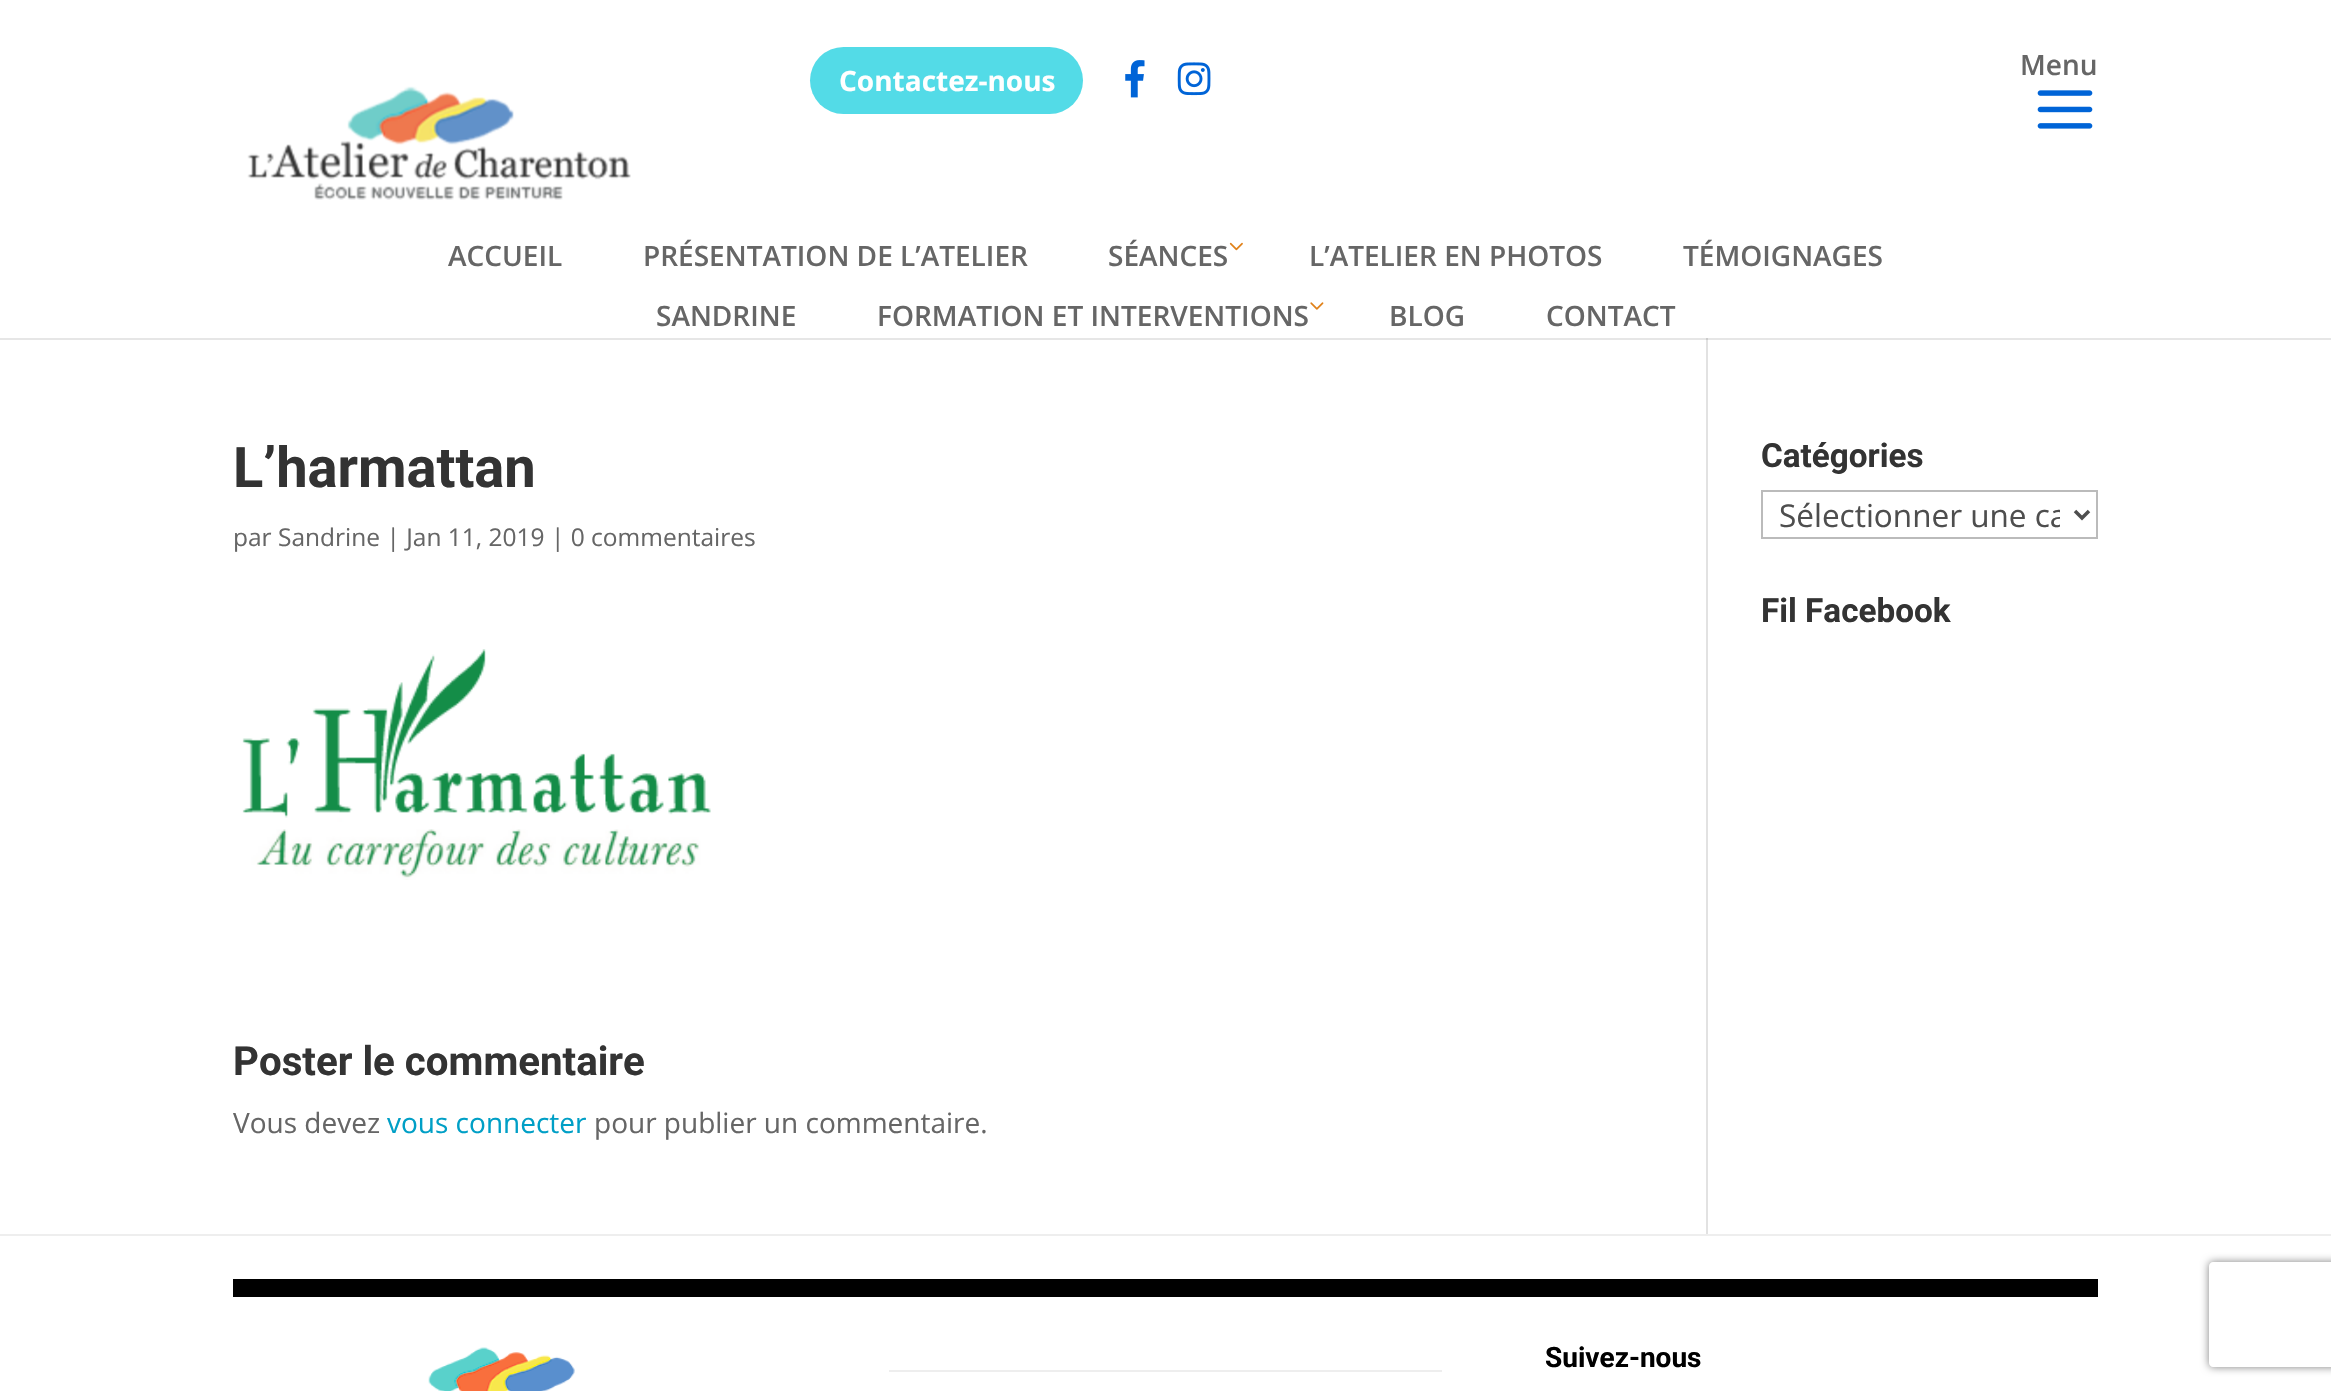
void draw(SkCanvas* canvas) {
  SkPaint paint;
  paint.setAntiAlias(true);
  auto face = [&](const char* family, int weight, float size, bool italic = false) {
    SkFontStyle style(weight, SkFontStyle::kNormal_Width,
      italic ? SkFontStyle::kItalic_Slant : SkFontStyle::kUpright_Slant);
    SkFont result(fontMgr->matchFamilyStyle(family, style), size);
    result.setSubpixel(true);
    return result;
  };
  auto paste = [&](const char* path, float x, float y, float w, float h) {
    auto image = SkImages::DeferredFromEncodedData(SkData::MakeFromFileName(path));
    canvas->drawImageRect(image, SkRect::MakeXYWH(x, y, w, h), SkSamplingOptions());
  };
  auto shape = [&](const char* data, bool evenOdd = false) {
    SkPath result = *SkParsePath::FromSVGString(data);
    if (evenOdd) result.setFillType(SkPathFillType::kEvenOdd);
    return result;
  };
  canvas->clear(0xffffffff);
  paint.setColor(0xffe6e6e6);
  canvas->drawRect(SkRect::MakeXYWH(0, 338, 2331, 2), paint);
  paste("img/1.png", 2037, 90, 56, 39);
  paint.setColor(0xff53dbe7);
  canvas->drawRoundRect(SkRect::MakeXYWH(810, 47, 273, 67), 33.5f, 33.5f, paint);
  paste("img/2.png", 1125, 60, 20, 38);
  paste("img/3.png", 1177, 62, 34, 34);
  paste("img/4.png", 247, 86, 384, 114);
  paste("img/5.png", 1229, 242, 14, 9);
  paste("img/6.png", 1310, 302, 14, 8);
  paint.setColor(0xffe2e2e2);
  canvas->drawRect(SkRect::MakeXYWH(1706, 338, 2, 896), paint);
  paint.setColor(0xffcbcbcb);
  canvas->drawRect(SkRect::MakeXYWH(1706, 338, 2, 2), paint);
  paste("img/7.png", 242, 649, 469, 231);
  paint.setStroke(true);
  paint.setStrokeWidth(2);
  paint.setColor(0xffbbbbbb);
  canvas->drawRect(SkRect::MakeXYWH(1762, 491, 335, 47), paint);
  paint.setStrokeWidth(3.5f);
  paint.setColor(0xff4e4e4e);
  canvas->drawPath(shape("M2075 511L2082 518L2089 511"), paint);
  paint.setStroke(false);
  paint.setColor(0xffeeeeee);
  canvas->drawRect(SkRect::MakeXYWH(0, 1234, 2331, 2), paint);
  paint.setColor(0xff000000);
  canvas->drawRect(SkRect::MakeXYWH(233, 1279, 1865, 18), paint);
  paste("img/8.png", 428, 1347, 147, 44);
  paint.setColor(0xffeeeeee);
  canvas->drawRect(SkRect::MakeXYWH(889, 1370, 553, 2), paint);
  canvas->save();
  canvas->clipPath(shape("M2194 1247H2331V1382H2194ZM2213 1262H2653C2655 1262 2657 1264 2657 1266V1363C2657 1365 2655 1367 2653 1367H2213C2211 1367 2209 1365 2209 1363V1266C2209 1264 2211 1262 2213 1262Z", true), true);
  paint.setColor(0xff808080);
  paint.setMaskFilter(SkMaskFilter::MakeBlur(kNormal_SkBlurStyle, 4.5f));
  canvas->drawRoundRect(SkRect::MakeXYWH(2209, 1262, 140, 105), 4, 4, paint);
  paint.setMaskFilter(nullptr);
  canvas->restore();
  auto f0 = face("Open Sans", 600, 28);
  paint.setColor(0xff666666);
  canvas->drawString("Menu", 2020, 75, f0, paint);
  auto f1 = face("Open Sans", 700, 28);
  paint.setColor(0xffffffff);
  canvas->drawString("Contactez-nous", 839, 91, f1, paint);
  paint.setColor(0xff666666);
  {
    const struct { const char* s; float x, y; } items[] = {
      {"ACCUEIL", 448, 266},
      {"PRÉSENTATION DE L’ATELIER", 643, 266},
      {"SÉANCES", 1108, 266},
      {"L’ATELIER EN PHOTOS", 1309, 266},
      {"TÉMOIGNAGES", 1683, 266},
      {"SANDRINE", 656, 326},
      {"FORMATION ET INTERVENTIONS", 877, 326},
      {"BLOG", 1389, 326},
      {"CONTACT", 1546, 326},
    };
    for (auto [s, x, y] : items) {
      canvas->drawString(s, x, y, f0, paint);
    }
  }
  auto f2 = face("Roboto", 700, 56);
  paint.setColor(0xff333333);
  canvas->drawString("L’harmattan", 233, 487, f2, paint);
  auto f3 = face("Open Sans", 400, 24.5f);
  paint.setColor(0xff666666);
  canvas->drawString("par Sandrine | Jan 11, 2019 | 0 commentaires", 233, 546, f3, paint);
  auto f4 = face("Roboto", 700, 40.25f);
  paint.setColor(0xff333333);
  canvas->drawString("Poster le commentaire", 233, 1075, f4, paint);
  auto f5 = face("Open Sans", 400, 28);
  paint.setColor(0xff666666);
  canvas->drawString("Vous devez", 233, 1133, f5, paint);
  paint.setColor(0xff009fc6);
  canvas->drawString("vous connecter", 387, 1133, f5, paint);
  paint.setColor(0xff666666);
  canvas->drawString("pour publier un commentaire.", 594, 1133, f5, paint);
  auto f6 = face("Roboto", 700, 33.25f);
  paint.setColor(0xff333333);
  canvas->drawString("Catégories", 1761, 467, f6, paint);
  canvas->save();
  canvas->clipRect(SkRect::MakeXYWH(1778, 492, 282, 45));
  auto f7 = face("Open Sans", 400, 31.5f);
  paint.setColor(0xff4e4e4e);
  canvas->drawString("Sélectionner une ca", 1779, 527, f7, paint);
  canvas->restore();
  paint.setColor(0xff333333);
  canvas->drawString("Fil Facebook", 1761, 622, f6, paint);
  auto f8 = face("Roboto", 700, 28);
  paint.setColor(0xff000000);
  canvas->drawString("Suivez-nous", 1545, 1367, f8, paint);
}
